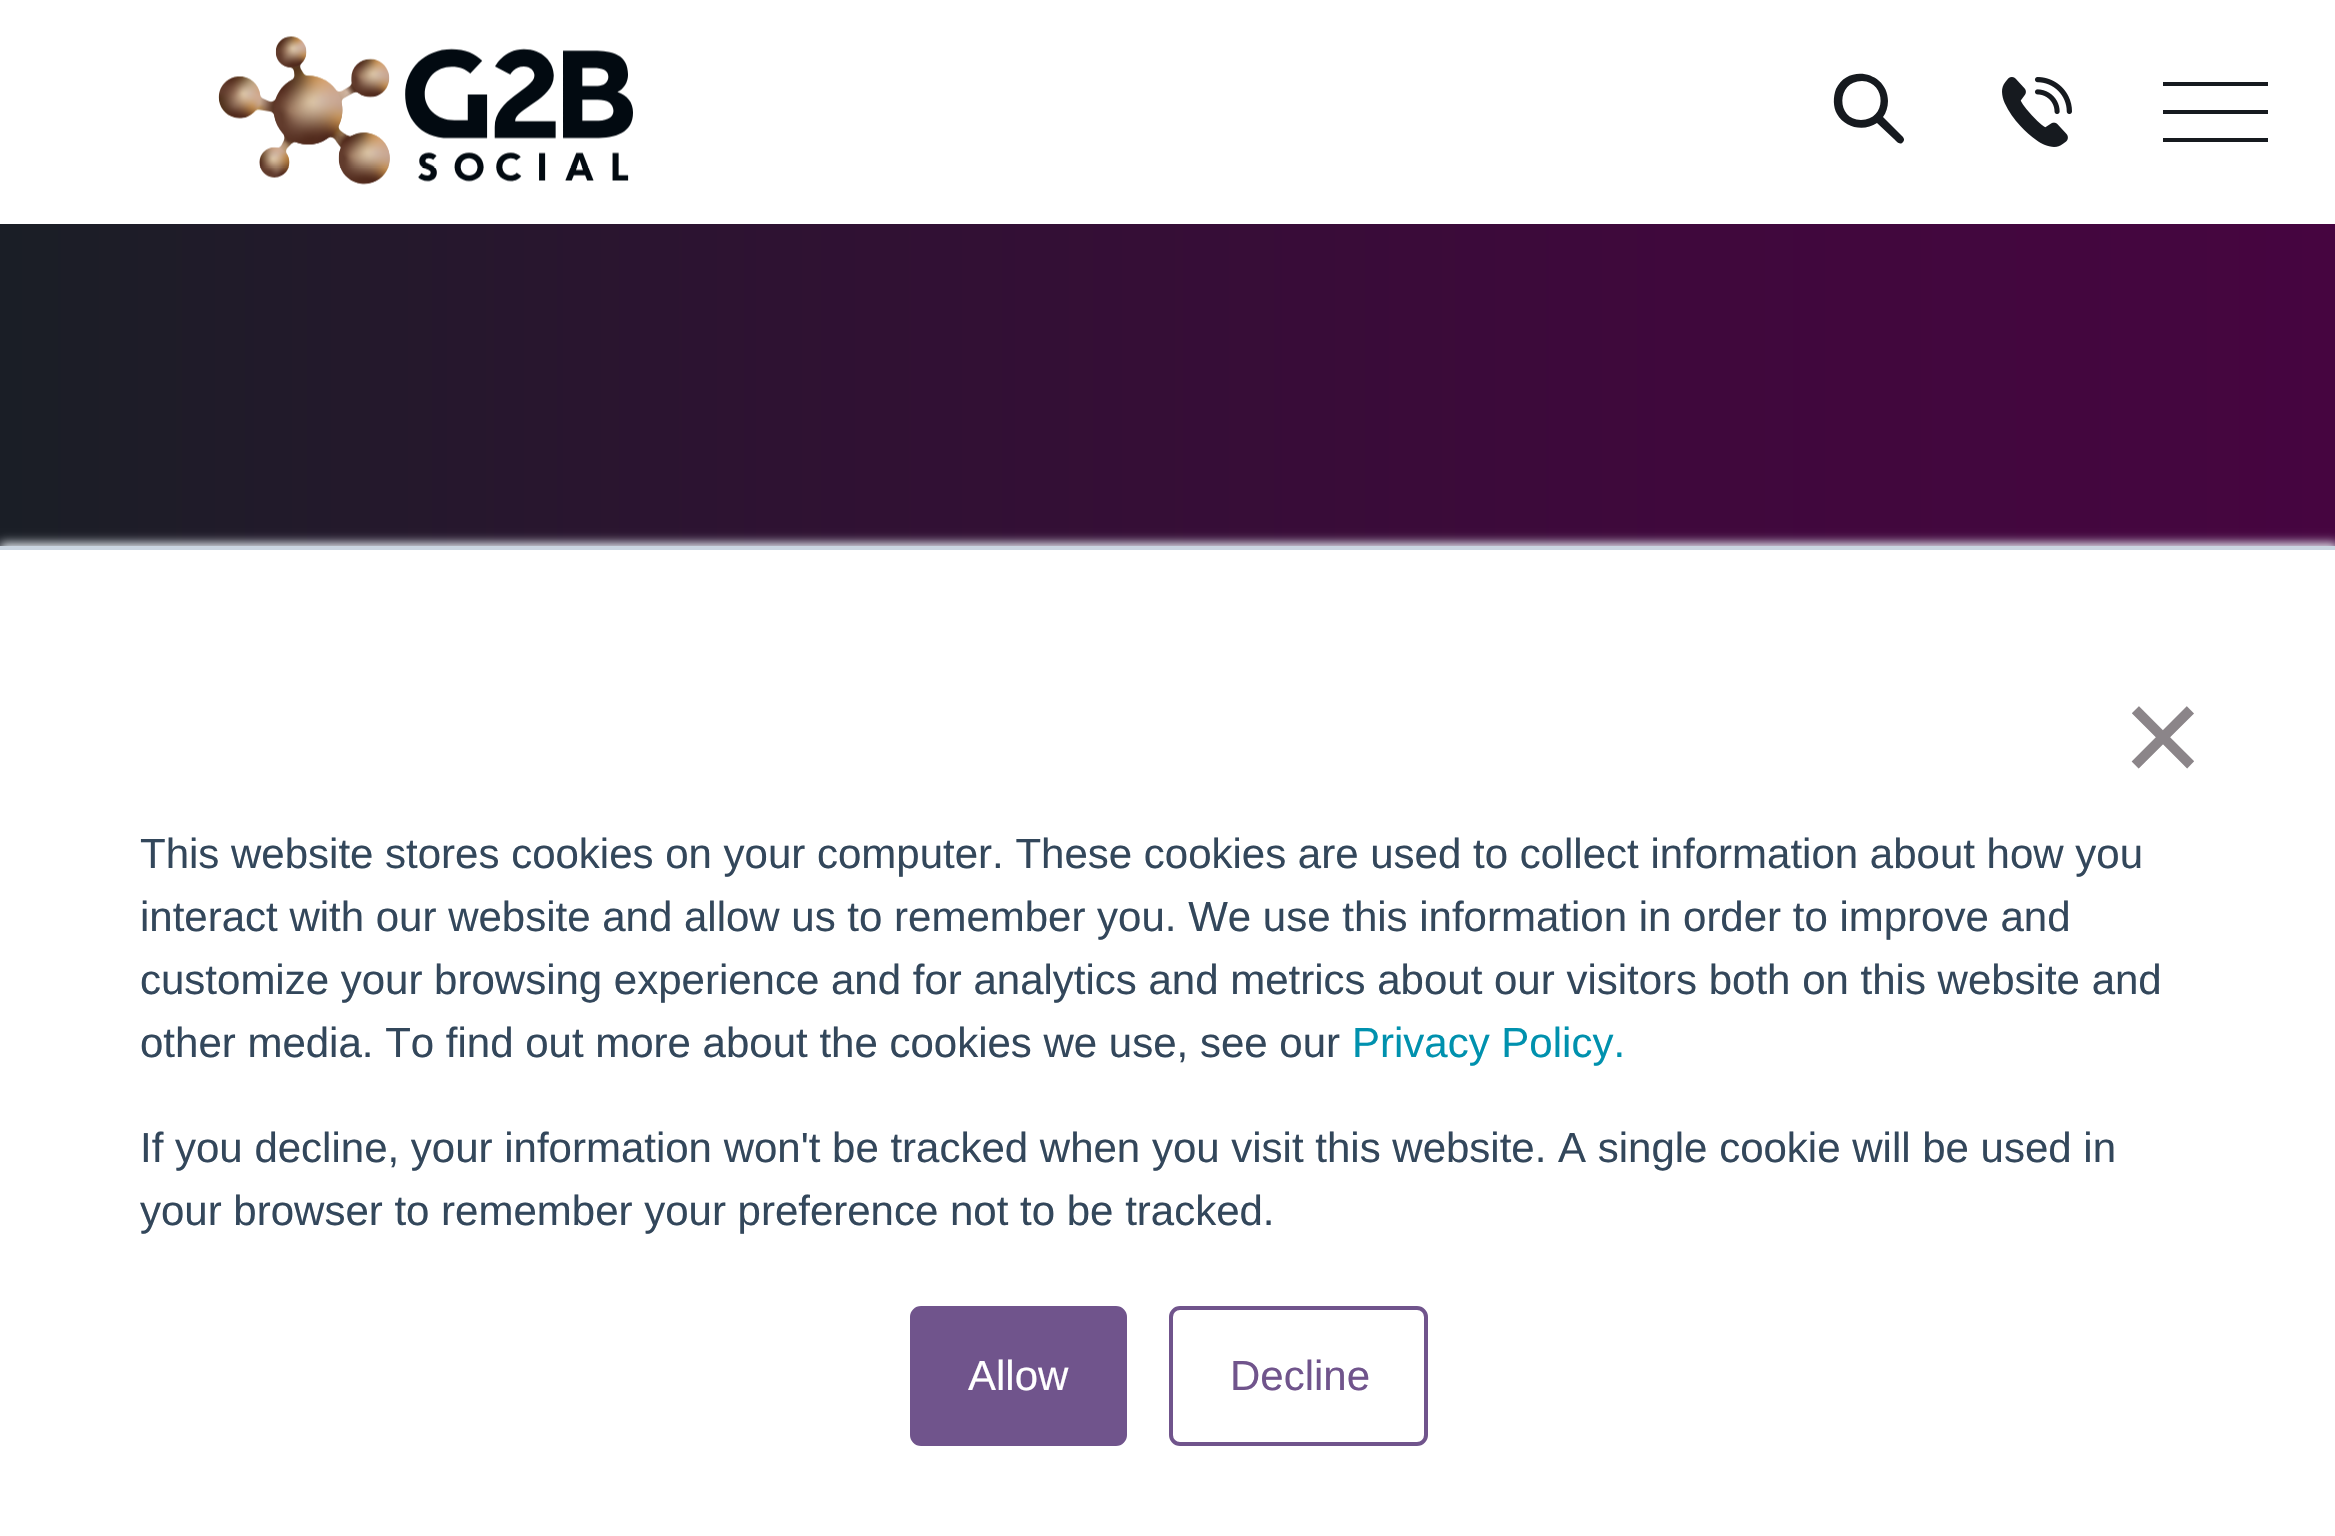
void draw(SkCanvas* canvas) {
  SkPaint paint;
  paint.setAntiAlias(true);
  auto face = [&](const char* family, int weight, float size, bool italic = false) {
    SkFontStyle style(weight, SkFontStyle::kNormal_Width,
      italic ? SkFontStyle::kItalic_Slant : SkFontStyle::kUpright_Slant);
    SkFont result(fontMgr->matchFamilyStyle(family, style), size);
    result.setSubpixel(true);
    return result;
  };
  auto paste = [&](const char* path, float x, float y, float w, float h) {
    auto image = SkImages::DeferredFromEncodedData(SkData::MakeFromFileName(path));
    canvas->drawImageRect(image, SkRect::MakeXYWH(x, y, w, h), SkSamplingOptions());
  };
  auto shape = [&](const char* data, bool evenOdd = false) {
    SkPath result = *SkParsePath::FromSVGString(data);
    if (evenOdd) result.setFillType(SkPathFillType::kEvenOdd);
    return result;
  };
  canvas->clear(0xffffffff);
  paste("img/1.png", 218, 36, 415, 149);
  paint.setColor(0xff161a1f);
  canvas->drawPath(shape("M1903 137L1883 117C1886 113 1888 107 1888 101C1888 72 1848 63 1836 89C1833 97 1833 107 1837 114C1845 128 1864 132 1877 123L1894 139C1896 141 1900 146 1903 142C1904 141 1904 140 1904 139ZM1861 120C1836 120 1836 81 1862 81C1887 82 1887 120 1861 120Z"), paint);
  paste("img/2.png", 2002, 77, 70, 70);
  {
    const struct { float x, y, w, h; SkColor color; } items[] = {
      {2163, 82, 105, 4, 0xff161a1f},
      {2163, 110, 105, 4, 0xff161a1f},
      {2163, 138, 105, 4, 0xff161a1f},
    };
    for (auto [x, y, w, h, color] : items) {
      paint.setColor(color);
      canvas->drawRect(SkRect::MakeXYWH(x, y, w, h), paint);
    }
  }
  {
    const SkColor colors[] = {0xff191f25, 0xff2e1232, 0xff3f083c, 0xff460540};
    const float stops[] = {0, 0.34f, 0.72f, 1};
    const SkPoint ends[] = {{-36, 560}, {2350, 560}};
    paint.setShader(SkGradientShader::MakeLinear(ends, colors, stops, 4, SkTileMode::kClamp));
    paint.setAlpha(255);
  }
  canvas->drawRect(SkRect::MakeXYWH(0, 224, 2335, 322), paint);
  paint.setShader(nullptr);
  paint.setColor(0xffeaf0f6);
  paint.setMaskFilter(SkMaskFilter::MakeBlur(kNormal_SkBlurStyle, 5));
  canvas->drawRect(SkRect::MakeXYWH(0, 543, 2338, 990), paint);
  paint.setMaskFilter(nullptr);
  paint.setColor(0xffffffff);
  canvas->drawRect(SkRect::MakeXYWH(0, 550, 2335, 986), paint);
  paint.setColor(0xffcbd6e2);
  canvas->drawRect(SkRect::MakeXYWH(0, 546, 2335, 4), paint);
  paint.setColor(0xff70548c);
  canvas->drawRoundRect(SkRect::MakeXYWH(912, 1308, 213, 136), 9, 9, paint);
  paint.setStroke(true);
  paint.setStrokeWidth(4);
  canvas->drawRoundRect(SkRect::MakeXYWH(912, 1308, 213, 136), 9, 9, paint);
  canvas->drawRoundRect(SkRect::MakeXYWH(1171, 1308, 255, 136), 9, 9, paint);
  auto f0 = face("Liberation Sans", 400, 140);
  paint.setStroke(false);
  paint.setColor(0xff8b8589);
  canvas->drawString("×", 2122, 784, f0, paint);
  auto f1 = face("Liberation Sans", 400, 42);
  paint.setColor(0xff33475b);
  {
    const struct { const char* s; float x, y; } items[] = {
      {"This website stores cookies on your computer. These cookies are used to collect information about how you", 140, 868},
      {"interact with our website and allow us to remember you. We use this information in order to improve and", 140, 931},
      {"customize your browsing experience and for analytics and metrics about our visitors both on this website and", 140, 994},
      {"other media. To find out more about the cookies we use, see our", 140, 1057},
    };
    for (auto [s, x, y] : items) {
      canvas->drawString(s, x, y, f1, paint);
    }
  }
  paint.setColor(0xff0091ae);
  canvas->drawString("Privacy Policy.", 1352, 1057, f1, paint);
  paint.setColor(0xff33475b);
  canvas->drawString("If you decline, your information won't be tracked when you visit this website. A single cookie will be used in", 140, 1162, f1, paint);
  canvas->drawString("your browser to remember your preference not to be tracked.", 140, 1225, f1, paint);
  paint.setColor(0xffffffff);
  canvas->drawString("Allow", 968, 1390, f1, paint);
  paint.setColor(0xff70548c);
  canvas->drawString("Decline", 1230, 1390, f1, paint);
}
